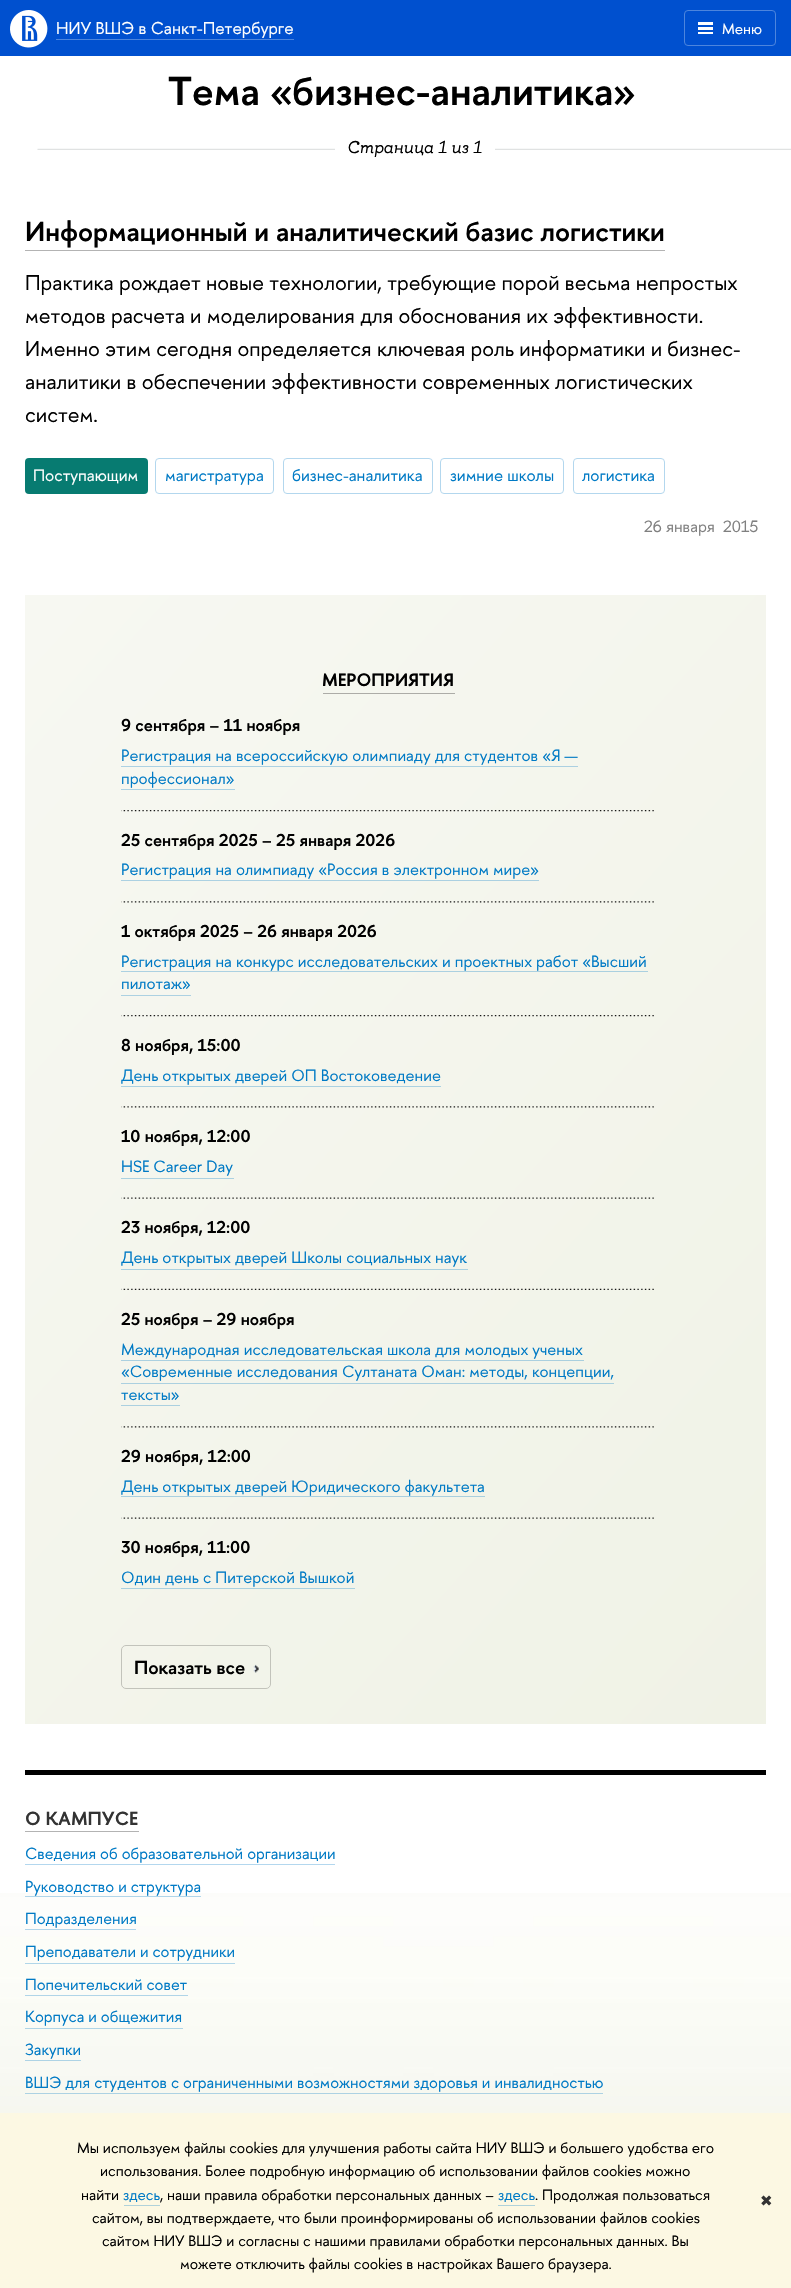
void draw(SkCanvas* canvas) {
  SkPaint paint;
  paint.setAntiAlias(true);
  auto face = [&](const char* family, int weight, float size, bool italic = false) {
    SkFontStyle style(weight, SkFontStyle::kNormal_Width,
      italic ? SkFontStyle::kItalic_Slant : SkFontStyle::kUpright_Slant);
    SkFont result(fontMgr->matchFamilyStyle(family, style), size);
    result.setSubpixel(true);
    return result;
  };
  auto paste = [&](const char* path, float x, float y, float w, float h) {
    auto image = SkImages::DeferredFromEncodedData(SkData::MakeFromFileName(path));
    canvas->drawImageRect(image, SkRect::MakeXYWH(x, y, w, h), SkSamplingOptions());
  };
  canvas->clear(0xffffffff);
  paste("img/1.png", 0, 1893, 791, 220);
  paint.setColor(0xff0050cf);
  canvas->drawRect(SkRect::MakeXYWH(0, 0, 791, 56), paint);
  paste("img/2.png", 10, 10, 38, 38);
  paint.setColor(0xff4d85dd);
  canvas->drawRect(SkRect::MakeXYWH(56, 39, 238, 1), paint);
  paint.setStroke(true);
  paint.setStrokeWidth(1);
  canvas->drawRoundRect(SkRect::MakeXYWH(684.5f, 10.5f, 91, 35), 3.5f, 3.5f, paint);
  paint.setStroke(false);
  {
    const struct { float x, y, w, h; SkColor color; } items[] = {
      {698, 22, 15, 3, 0xffffffff},
      {698, 27, 15, 3, 0xffffffff},
      {698, 32, 15, 2, 0xffffffff},
    };
    for (auto [x, y, w, h, color] : items) {
      paint.setColor(color);
      canvas->drawRect(SkRect::MakeXYWH(x, y, w, h), paint);
    }
  }
  paste("img/3.png", 37, 148, 298, 2);
  paste("img/4.png", 495, 148, 296, 2);
  paint.setColor(0xffb3b3b3);
  canvas->drawRect(SkRect::MakeXYWH(25, 250, 640, 1), paint);
  paint.setColor(0xff077b71);
  canvas->drawRoundRect(SkRect::MakeXYWH(25, 458, 123, 36), 4, 4, paint);
  paint.setStroke(true);
  paint.setColor(0xffb3d7ee);
  canvas->drawRoundRect(SkRect::MakeXYWH(155.5f, 458.5f, 118, 35), 3.5f, 3.5f, paint);
  canvas->drawRoundRect(SkRect::MakeXYWH(283.5f, 458.5f, 149, 35), 3.5f, 3.5f, paint);
  canvas->drawRoundRect(SkRect::MakeXYWH(440.5f, 458.5f, 123, 35), 3.5f, 3.5f, paint);
  canvas->drawRoundRect(SkRect::MakeXYWH(573.5f, 458.5f, 91, 35), 3.5f, 3.5f, paint);
  paint.setStroke(false);
  {
    const SkColor colors[] = {0xfff7f8f2, 0xfff0f2e6};
    const float stops[] = {0, 1};
    const SkPoint ends[] = {{-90, 722}, {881, 1596}};
    paint.setShader(SkGradientShader::MakeLinear(ends, colors, stops, 2, SkTileMode::kClamp));
    paint.setAlpha(255);
  }
  canvas->drawRect(SkRect::MakeXYWH(25, 595, 741, 1129), paint);
  {
    const SkColor colors[] = {0xffadd2e4, 0xffa8cedc};
    const float stops[] = {0, 1};
    const SkPoint ends[] = {{-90, 722}, {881, 1596}};
    paint.setShader(SkGradientShader::MakeLinear(ends, colors, stops, 2, SkTileMode::kClamp));
    paint.setAlpha(255);
  }
  canvas->drawRect(SkRect::MakeXYWH(121, 1496, 364, 1), paint);
  canvas->drawRect(SkRect::MakeXYWH(121, 1383, 493, 1), paint);
  canvas->drawRect(SkRect::MakeXYWH(121, 1360, 463, 1), paint);
  canvas->drawRect(SkRect::MakeXYWH(121, 971, 527, 1), paint);
  canvas->drawRect(SkRect::MakeXYWH(121, 880, 418, 1), paint);
  canvas->drawRect(SkRect::MakeXYWH(121, 766, 457, 1), paint);
  paint.setShader(nullptr);
  paint.setColor(0xffacaca7);
  canvas->drawRect(SkRect::MakeXYWH(323, 693, 132, 1), paint);
  paint.setColor(0xffacd2e3);
  canvas->drawRect(SkRect::MakeXYWH(121, 789, 114, 1), paint);
  paste("img/5.png", 121, 810, 533, 2);
  paste("img/6.png", 121, 901, 533, 2);
  paint.setColor(0xffacd1e2);
  canvas->drawRect(SkRect::MakeXYWH(121, 995, 70, 1), paint);
  paste("img/7.png", 121, 1015, 533, 2);
  paint.setColor(0xffabd1e1);
  canvas->drawRect(SkRect::MakeXYWH(121, 1086, 320, 1), paint);
  paste("img/8.png", 121, 1106, 533, 2);
  canvas->drawRect(SkRect::MakeXYWH(121, 1178, 113, 1), paint);
  paste("img/9.png", 121, 1197, 533, 2);
  paint.setColor(0xffaad0e0);
  canvas->drawRect(SkRect::MakeXYWH(121, 1269, 347, 1), paint);
  paste("img/10.png", 121, 1288, 533, 2);
  paint.setColor(0xffabd0e0);
  canvas->drawRect(SkRect::MakeXYWH(121, 1405, 59, 1), paint);
  paste("img/11.png", 121, 1426, 533, 2);
  paste("img/12.png", 121, 1517, 533, 2);
  paint.setColor(0xffaad0df);
  canvas->drawRect(SkRect::MakeXYWH(121, 1588, 234, 1), paint);
  paint.setStroke(true);
  paint.setColor(0xffc2c3bb);
  canvas->drawRoundRect(SkRect::MakeXYWH(121.5f, 1645.5f, 149, 43), 4.5f, 4.5f, paint);
  paste("img/13.png", 253, 1664, 6, 9);
  paint.setStroke(false);
  {
    const struct { float x, y, w, h; SkColor color; } items[] = {
      {25, 1770, 741, 5, 0xff000000},
      {25, 1831, 114, 1, 0xffb3b3b3},
      {25, 1864, 310, 1, 0xffb3d7ee},
      {25, 1896, 176, 1, 0xffb0d5ea},
      {25, 1929, 111, 1, 0xffb0d5ea},
      {25, 1963, 210, 1, 0xffb0d6e9},
      {25, 1995, 163, 1, 0xffb0d5e8},
      {25, 2028, 158, 1, 0xffaed4e6},
      {25, 2060, 56, 1, 0xffaed3e5},
      {25, 2093, 578, 1, 0xffadd2e3},
      {0, 2113, 791, 175, 0xfffcf8e3},
      {124, 2205, 36, 1, 0xffb0d2da},
      {498, 2205, 37, 1, 0xffb0d2da},
    };
    for (auto [x, y, w, h, color] : items) {
      paint.setColor(color);
      canvas->drawRect(SkRect::MakeXYWH(x, y, w, h), paint);
    }
  }
  auto f0 = face("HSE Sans", 400, 17);
  paint.setColor(0xffffffff);
  canvas->drawString("НИУ ВШЭ в Санкт-Петербурге", 56, 34, f0, paint);
  auto f1 = face("HSE Sans", 400, 15);
  canvas->drawString("Меню", 722, 34, f1, paint);
  auto f2 = face("HSE Sans", 600, 40.4f);
  paint.setColor(0xff000000);
  canvas->drawString("Тема «бизнес-аналитика»", 168, 105, f2, paint);
  auto f3 = face("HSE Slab", 400, 17, true);
  canvas->drawString("Страница 1 из 1", 347, 153, f3, paint);
  auto f4 = face("HSE Sans", 600, 27.6f);
  canvas->drawString("Информационный и аналитический базис логистики", 25, 241, f4, paint);
  auto f5 = face("HSE Sans", 400, 21.25f);
  {
    const struct { const char* s; float x, y; } items[] = {
      {"Практика рождает новые технологии, требующие порой весьма непростых", 25, 290},
      {"методов расчета и моделирования для обоснования их эффективности.", 25, 323},
      {"Именно этим сегодня определяется ключевая роль информатики и бизнес-", 25, 356},
      {"аналитики в обеспечении эффективности современных логистических", 25, 389},
      {"систем.", 25, 422},
    };
    for (auto [s, x, y] : items) {
      canvas->drawString(s, x, y, f5, paint);
    }
  }
  auto f6 = face("HSE Sans", 400, 16.5f);
  paint.setColor(0xffffffff);
  canvas->drawString("Поступающим", 33, 481, f6, paint);
  paint.setColor(0xff007ac5);
  {
    const struct { const char* s; float x, y; } items[] = {
      {"магистратура", 165, 481},
      {"бизнес-аналитика", 292, 481},
      {"зимние школы", 450, 481},
      {"логистика", 582, 481},
    };
    for (auto [s, x, y] : items) {
      canvas->drawString(s, x, y, f6, paint);
    }
  }
  auto f7 = face("HSE Sans", 400, 16.25f);
  paint.setColor(0xff808080);
  canvas->drawString("26 января", 644, 532, f7, paint);
  canvas->drawString("2015", 723, 532, f7, paint);
  auto f8 = face("HSE Sans", 600, 18);
  paint.setColor(0xff000000);
  canvas->drawString("МЕРОПРИЯТИЯ", 322, 686, f8, paint);
  auto f9 = face("HSE Sans", 600, 17);
  canvas->drawString("9 сентября – 11 ноября", 121, 731, f9, paint);
  paint.setColor(0xff007ac5);
  canvas->drawString("Регистрация на всероссийскую олимпиаду для студентов «Я —", 121, 761, f7, paint);
  canvas->drawString("профессионал»", 121, 784, f7, paint);
  paint.setColor(0xff000000);
  canvas->drawString("25 сентября 2025 – 25 января 2026", 121, 846, f9, paint);
  paint.setColor(0xff007ac5);
  canvas->drawString("Регистрация на олимпиаду «Россия в электронном мире»", 121, 875, f7, paint);
  paint.setColor(0xff000000);
  canvas->drawString("1 октября 2025 – 26 января 2026", 121, 937, f9, paint);
  paint.setColor(0xff007ac5);
  canvas->drawString("Регистрация на конкурс исследовательских и проектных работ «Высший", 121, 967, f7, paint);
  canvas->drawString("пилотаж»", 121, 989, f7, paint);
  paint.setColor(0xff000000);
  canvas->drawString("8 ноября, 15:00", 121, 1051, f9, paint);
  paint.setColor(0xff007ac5);
  canvas->drawString("День открытых дверей ОП Востоковедение", 121, 1081, f7, paint);
  paint.setColor(0xff000000);
  canvas->drawString("10 ноября, 12:00", 121, 1142, f9, paint);
  paint.setColor(0xff007ac5);
  canvas->drawString("HSE Career Day", 121, 1172, f7, paint);
  paint.setColor(0xff000000);
  canvas->drawString("23 ноября, 12:00", 121, 1233, f9, paint);
  paint.setColor(0xff007ac5);
  canvas->drawString("День открытых дверей Школы социальных наук", 121, 1263, f7, paint);
  paint.setColor(0xff000000);
  canvas->drawString("25 ноября – 29 ноября", 121, 1325, f9, paint);
  paint.setColor(0xff007ac5);
  {
    const struct { const char* s; float x, y; } items[] = {
      {"Международная исследовательская школа для молодых ученых", 121, 1355},
      {"«Современные исследования Султаната Оман: методы, концепции,", 121, 1377},
      {"тексты»", 121, 1400},
    };
    for (auto [s, x, y] : items) {
      canvas->drawString(s, x, y, f7, paint);
    }
  }
  paint.setColor(0xff000000);
  canvas->drawString("29 ноября, 12:00", 121, 1462, f9, paint);
  paint.setColor(0xff007ac5);
  canvas->drawString("День открытых дверей Юридического факультета", 121, 1492, f7, paint);
  paint.setColor(0xff000000);
  canvas->drawString("30 ноября, 11:00", 121, 1553, f9, paint);
  paint.setColor(0xff007ac5);
  canvas->drawString("Один день с Питерской Вышкой", 121, 1583, f7, paint);
  auto f10 = face("HSE Sans", 600, 19);
  paint.setColor(0xff000000);
  canvas->drawString("Показать все", 134, 1674, f10, paint);
  paint.setColor(0xff333333);
  canvas->drawString("О КАМПУСЕ", 25, 1825, f10, paint);
  auto f11 = face("HSE Sans", 400, 15.95f);
  paint.setColor(0xff007ac5);
  {
    const struct { const char* s; float x, y; } items[] = {
      {"Сведения об образовательной организации", 25, 1859},
      {"Руководство и структура", 25, 1892},
      {"Подразделения", 25, 1924},
      {"Преподаватели и сотрудники", 25, 1957},
      {"Попечительский совет", 25, 1990},
      {"Корпуса и общежития", 25, 2022},
      {"Закупки", 25, 2055},
      {"ВШЭ для студентов с ограниченными возможностями здоровья и инвалидностью", 25, 2088},
    };
    for (auto [s, x, y] : items) {
      canvas->drawString(s, x, y, f11, paint);
    }
  }
  paint.setColor(0xff000000);
  {
    const struct { const char* s; float x, y; } items[] = {
      {"Мы используем файлы cookies для улучшения работы сайта НИУ ВШЭ и большего удобства его", 77, 2153},
      {"использования. Более подробную информацию об использовании файлов cookies можно", 100, 2176},
      {"найти", 81, 2200},
    };
    for (auto [s, x, y] : items) {
      canvas->drawString(s, x, y, f1, paint);
    }
  }
  paint.setColor(0xff007ac5);
  canvas->drawString("здесь", 123, 2200, f1, paint);
  paint.setColor(0xff000000);
  canvas->drawString(", наши правила обработки персональных данных –", 160, 2200, f1, paint);
  paint.setColor(0xff007ac5);
  canvas->drawString("здесь", 498, 2200, f1, paint);
  paint.setColor(0xff000000);
  {
    const struct { const char* s; float x, y; } items[] = {
      {". Продолжая пользоваться", 535, 2200},
      {"сайтом, вы подтверждаете, что были проинформированы об использовании файлов cookies", 92, 2223},
      {"сайтом НИУ ВШЭ и согласны с нашими правилами обработки персональных данных. Вы", 102, 2246},
      {"можете отключить файлы cookies в настройках Вашего браузера.", 180, 2269},
    };
    for (auto [s, x, y] : items) {
      canvas->drawString(s, x, y, f1, paint);
    }
  }
  auto f12 = face("DejaVu Sans", 400, 15);
  paint.setColor(0xff333333);
  canvas->drawString("✖", 760, 2206, f12, paint);
}
